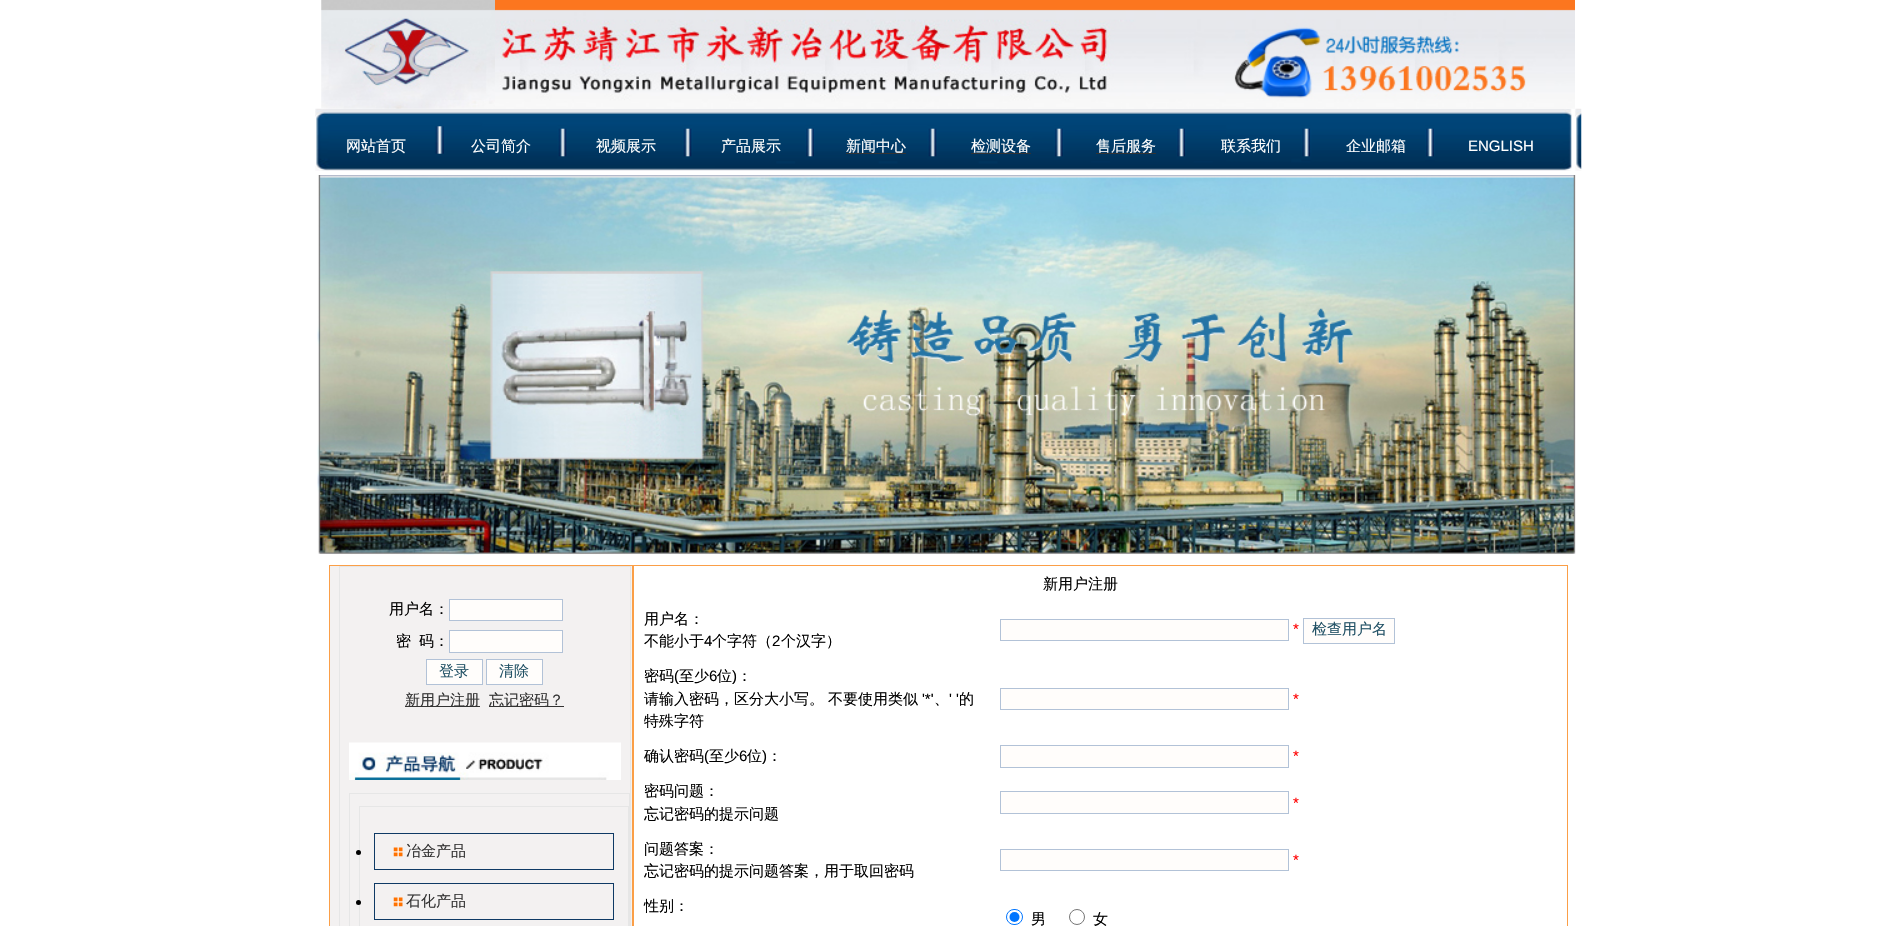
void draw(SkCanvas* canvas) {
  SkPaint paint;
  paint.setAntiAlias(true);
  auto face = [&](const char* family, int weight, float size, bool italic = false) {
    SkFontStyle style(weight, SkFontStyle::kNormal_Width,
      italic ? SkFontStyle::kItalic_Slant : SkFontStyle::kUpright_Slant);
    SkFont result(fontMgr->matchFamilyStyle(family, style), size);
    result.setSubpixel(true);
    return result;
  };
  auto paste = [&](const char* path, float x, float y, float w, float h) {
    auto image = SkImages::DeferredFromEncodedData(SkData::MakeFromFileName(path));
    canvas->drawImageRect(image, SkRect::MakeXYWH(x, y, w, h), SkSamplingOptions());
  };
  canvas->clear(0xffffffff);
  paste("img/3.png", 315, 108, 1267, 63);
  paste("img/1.png", 321, 0, 174, 109);
  paste("img/2.png", 495, 0, 1080, 109);
  {
    const struct { float x, y, w, h; SkColor color; } items[] = {
      {846, 153, 60, 1, 0xff333333},
      {971, 153, 60, 1, 0xff333333},
      {1096, 153, 60, 1, 0xff333333},
    };
    for (auto [x, y, w, h, color] : items) {
      paint.setColor(color);
      canvas->drawRect(SkRect::MakeXYWH(x, y, w, h), paint);
    }
  }
  paste("img/4.png", 317, 175, 1259, 380);
  paint.setColor(0xfff3f1f1);
  canvas->drawRect(SkRect::MakeXYWH(329.5f, 565.5f, 303, 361), paint);
  paint.setStroke(true);
  paint.setStrokeWidth(1);
  paint.setColor(0xfffb9f47);
  canvas->drawRect(SkRect::MakeXYWH(329.5f, 565.5f, 303, 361), paint);
  paint.setColor(0xffe6e6e6);
  canvas->drawRect(SkRect::MakeXYWH(339.5f, 566.5f, 291, 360), paint);
  paint.setStroke(false);
  paint.setColor(0xfffffdfb);
  canvas->drawRect(SkRect::MakeXYWH(449.5f, 599.5f, 113, 21), paint);
  paint.setStroke(true);
  paint.setColor(0xffb2c2d7);
  canvas->drawRect(SkRect::MakeXYWH(449.5f, 599.5f, 113, 21), paint);
  paint.setStroke(false);
  paint.setColor(0xfffffdfb);
  canvas->drawRect(SkRect::MakeXYWH(449.5f, 630.5f, 113, 22), paint);
  paint.setStroke(true);
  paint.setColor(0xffb2c2d7);
  canvas->drawRect(SkRect::MakeXYWH(449.5f, 630.5f, 113, 22), paint);
  paint.setStroke(false);
  paint.setColor(0xfffffdfb);
  canvas->drawRect(SkRect::MakeXYWH(426.5f, 659.5f, 56, 25), paint);
  paint.setStroke(true);
  paint.setColor(0xffb2c2d7);
  canvas->drawRect(SkRect::MakeXYWH(426.5f, 659.5f, 56, 25), paint);
  paint.setStroke(false);
  paint.setColor(0xfffffdfb);
  canvas->drawRect(SkRect::MakeXYWH(486.5f, 659.5f, 56, 25), paint);
  paint.setStroke(true);
  paint.setColor(0xffb2c2d7);
  canvas->drawRect(SkRect::MakeXYWH(486.5f, 659.5f, 56, 25), paint);
  paint.setStroke(false);
  paint.setColor(0xff333333);
  canvas->drawRect(SkRect::MakeXYWH(405, 706, 75, 1), paint);
  canvas->drawRect(SkRect::MakeXYWH(489, 706, 75, 1), paint);
  paste("img/5.png", 349, 742, 272, 38);
  paint.setStroke(true);
  paint.setColor(0xffe6e6e6);
  canvas->drawRect(SkRect::MakeXYWH(349.5f, 793.5f, 280, 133), paint);
  canvas->drawRect(SkRect::MakeXYWH(359.5f, 806.5f, 269, 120), paint);
  paint.setColor(0xff0e3a65);
  canvas->drawRect(SkRect::MakeXYWH(374.5f, 833.5f, 239, 36), paint);
  paint.setStroke(false);
  paint.setColor(0xff000000);
  canvas->drawCircle(358.5f, 852.5f, 2.5f, paint);
  paste("img/6.png", 393, 847, 10, 10);
  paint.setStroke(true);
  paint.setColor(0xff0e3a65);
  canvas->drawRect(SkRect::MakeXYWH(374.5f, 883.5f, 239, 36), paint);
  paint.setStroke(false);
  paint.setColor(0xff000000);
  canvas->drawCircle(358.5f, 902.5f, 2.5f, paint);
  paste("img/6.png", 393, 897, 10, 10);
  paint.setStroke(true);
  paint.setColor(0xfffb9f47);
  canvas->drawRect(SkRect::MakeXYWH(633.5f, 565.5f, 934, 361), paint);
  paint.setStroke(false);
  paint.setColor(0xfffffdfb);
  canvas->drawRect(SkRect::MakeXYWH(1000.5f, 619.5f, 288, 21), paint);
  paint.setStroke(true);
  paint.setColor(0xffb2c2d7);
  canvas->drawRect(SkRect::MakeXYWH(1000.5f, 619.5f, 288, 21), paint);
  paint.setStroke(false);
  paint.setColor(0xfffffdfb);
  canvas->drawRect(SkRect::MakeXYWH(1303.5f, 618.5f, 91, 25), paint);
  paint.setStroke(true);
  paint.setColor(0xffb2c2d7);
  canvas->drawRect(SkRect::MakeXYWH(1303.5f, 618.5f, 91, 25), paint);
  paint.setStroke(false);
  paint.setColor(0xfffffdfb);
  canvas->drawRect(SkRect::MakeXYWH(1000.5f, 688.5f, 288, 21), paint);
  paint.setStroke(true);
  paint.setColor(0xffb2c2d7);
  canvas->drawRect(SkRect::MakeXYWH(1000.5f, 688.5f, 288, 21), paint);
  paint.setStroke(false);
  paint.setColor(0xfffffdfb);
  canvas->drawRect(SkRect::MakeXYWH(1000.5f, 745.5f, 288, 22), paint);
  paint.setStroke(true);
  paint.setColor(0xffb2c2d7);
  canvas->drawRect(SkRect::MakeXYWH(1000.5f, 745.5f, 288, 22), paint);
  paint.setStroke(false);
  paint.setColor(0xfffffdfb);
  canvas->drawRect(SkRect::MakeXYWH(1000.5f, 791.5f, 288, 22), paint);
  paint.setStroke(true);
  paint.setColor(0xffb2c2d7);
  canvas->drawRect(SkRect::MakeXYWH(1000.5f, 791.5f, 288, 22), paint);
  paint.setStroke(false);
  paint.setColor(0xfffffdfb);
  canvas->drawRect(SkRect::MakeXYWH(1000.5f, 849.5f, 288, 21), paint);
  paint.setStroke(true);
  paint.setColor(0xffb2c2d7);
  canvas->drawRect(SkRect::MakeXYWH(1000.5f, 849.5f, 288, 21), paint);
  paint.setColor(0xff0075ff);
  canvas->drawRoundRect(SkRect::MakeXYWH(1006.5f, 909.5f, 16, 15), 7.5f, 7.5f, paint);
  paint.setStroke(false);
  canvas->drawCircle(1014.5f, 917, 5, paint);
  paint.setStroke(true);
  paint.setColor(0xff767676);
  canvas->drawCircle(1077, 917, 7.5f, paint);
  auto f0 = face("WenQuanYi Zen Hei", 500, 15);
  paint.setStroke(false);
  paint.setColor(0xffffffff);
  {
    const struct { const char* s; float x, y; } items[] = {
      {"网站首页", 346, 151},
      {"公司简介", 471, 151},
      {"视频展示", 596, 151},
      {"产品展示", 721, 151},
      {"新闻中心", 846, 151},
      {"检测设备", 971, 151},
      {"售后服务", 1096, 151},
      {"联系我们", 1221, 151},
      {"企业邮箱", 1346, 151},
    };
    for (auto [s, x, y] : items) {
      canvas->drawString(s, x, y, f0, paint);
    }
  }
  auto f1 = face("Liberation Sans", 400, 15);
  canvas->drawString("ENGLISH", 1468, 151, f1, paint);
  paint.setColor(0xff000000);
  {
    const struct { const char* s; float x, y; } items[] = {
      {"用户名：", 389, 614},
      {"密", 396, 646},
      {"码：", 419, 646},
    };
    for (auto [s, x, y] : items) {
      canvas->drawString(s, x, y, f0, paint);
    }
  }
  paint.setColor(0xff205064);
  canvas->drawString("登录", 439, 676, f0, paint);
  canvas->drawString("清除", 499, 676, f0, paint);
  paint.setColor(0xff333333);
  {
    const struct { const char* s; float x, y; } items[] = {
      {"新用户注册", 405, 705},
      {"忘记密码？", 489, 705},
      {"冶金产品", 406, 856},
      {"石化产品", 406, 906},
    };
    for (auto [s, x, y] : items) {
      canvas->drawString(s, x, y, f0, paint);
    }
  }
  paint.setColor(0xff000000);
  {
    const struct { const char* s; float x, y; } items[] = {
      {"新用户注册", 1043, 589},
      {"用户名：", 644, 624},
      {"不能小于", 644, 646},
    };
    for (auto [s, x, y] : items) {
      canvas->drawString(s, x, y, f0, paint);
    }
  }
  canvas->drawString("4", 704, 646, f1, paint);
  canvas->drawString("个字符（", 712, 646, f0, paint);
  canvas->drawString("2", 772, 646, f1, paint);
  canvas->drawString("个汉字）", 781, 646, f0, paint);
  paint.setColor(0xffff0000);
  canvas->drawString("*", 1293, 634, f1, paint);
  paint.setColor(0xff205064);
  canvas->drawString("检查用户名", 1312, 634, f0, paint);
  paint.setColor(0xff000000);
  canvas->drawString("密码", 644, 681, f0, paint);
  canvas->drawString("(", 674, 681, f1, paint);
  canvas->drawString("至少", 679, 681, f0, paint);
  canvas->drawString("6", 709, 681, f1, paint);
  canvas->drawString("位", 717, 681, f0, paint);
  canvas->drawString(")", 732, 681, f1, paint);
  {
    const struct { const char* s; float x, y; } items[] = {
      {"：", 737, 681},
      {"请输入密码，区分大小写。", 644, 704},
      {"不要使用类似", 828, 704},
    };
    for (auto [s, x, y] : items) {
      canvas->drawString(s, x, y, f0, paint);
    }
  }
  canvas->drawString("'*'", 922, 704, f1, paint);
  canvas->drawString("' '", 949, 704, f1, paint);
  {
    const struct { const char* s; float x, y; } items[] = {
      {"的", 959, 704},
      {"、", 934, 704},
      {"特殊字符", 644, 726},
    };
    for (auto [s, x, y] : items) {
      canvas->drawString(s, x, y, f0, paint);
    }
  }
  paint.setColor(0xffff0000);
  canvas->drawString("*", 1293, 704, f1, paint);
  paint.setColor(0xff000000);
  canvas->drawString("确认密码", 644, 761, f0, paint);
  canvas->drawString("(", 704, 761, f1, paint);
  canvas->drawString("至少", 709, 761, f0, paint);
  canvas->drawString("6", 739, 761, f1, paint);
  canvas->drawString("位", 747, 761, f0, paint);
  canvas->drawString(")", 762, 761, f1, paint);
  canvas->drawString("：", 767, 761, f0, paint);
  paint.setColor(0xffff0000);
  canvas->drawString("*", 1293, 761, f1, paint);
  paint.setColor(0xff000000);
  canvas->drawString("密码问题：", 644, 796, f0, paint);
  canvas->drawString("忘记密码的提示问题", 644, 819, f0, paint);
  paint.setColor(0xffff0000);
  canvas->drawString("*", 1293, 808, f1, paint);
  paint.setColor(0xff000000);
  canvas->drawString("问题答案：", 644, 854, f0, paint);
  canvas->drawString("忘记密码的提示问题答案，用于取回密码", 644, 876, f0, paint);
  paint.setColor(0xffff0000);
  canvas->drawString("*", 1293, 865, f1, paint);
  paint.setColor(0xff000000);
  {
    const struct { const char* s; float x, y; } items[] = {
      {"性别：", 644, 911},
      {"男", 1031, 924},
      {"女", 1093, 924},
    };
    for (auto [s, x, y] : items) {
      canvas->drawString(s, x, y, f0, paint);
    }
  }
}
